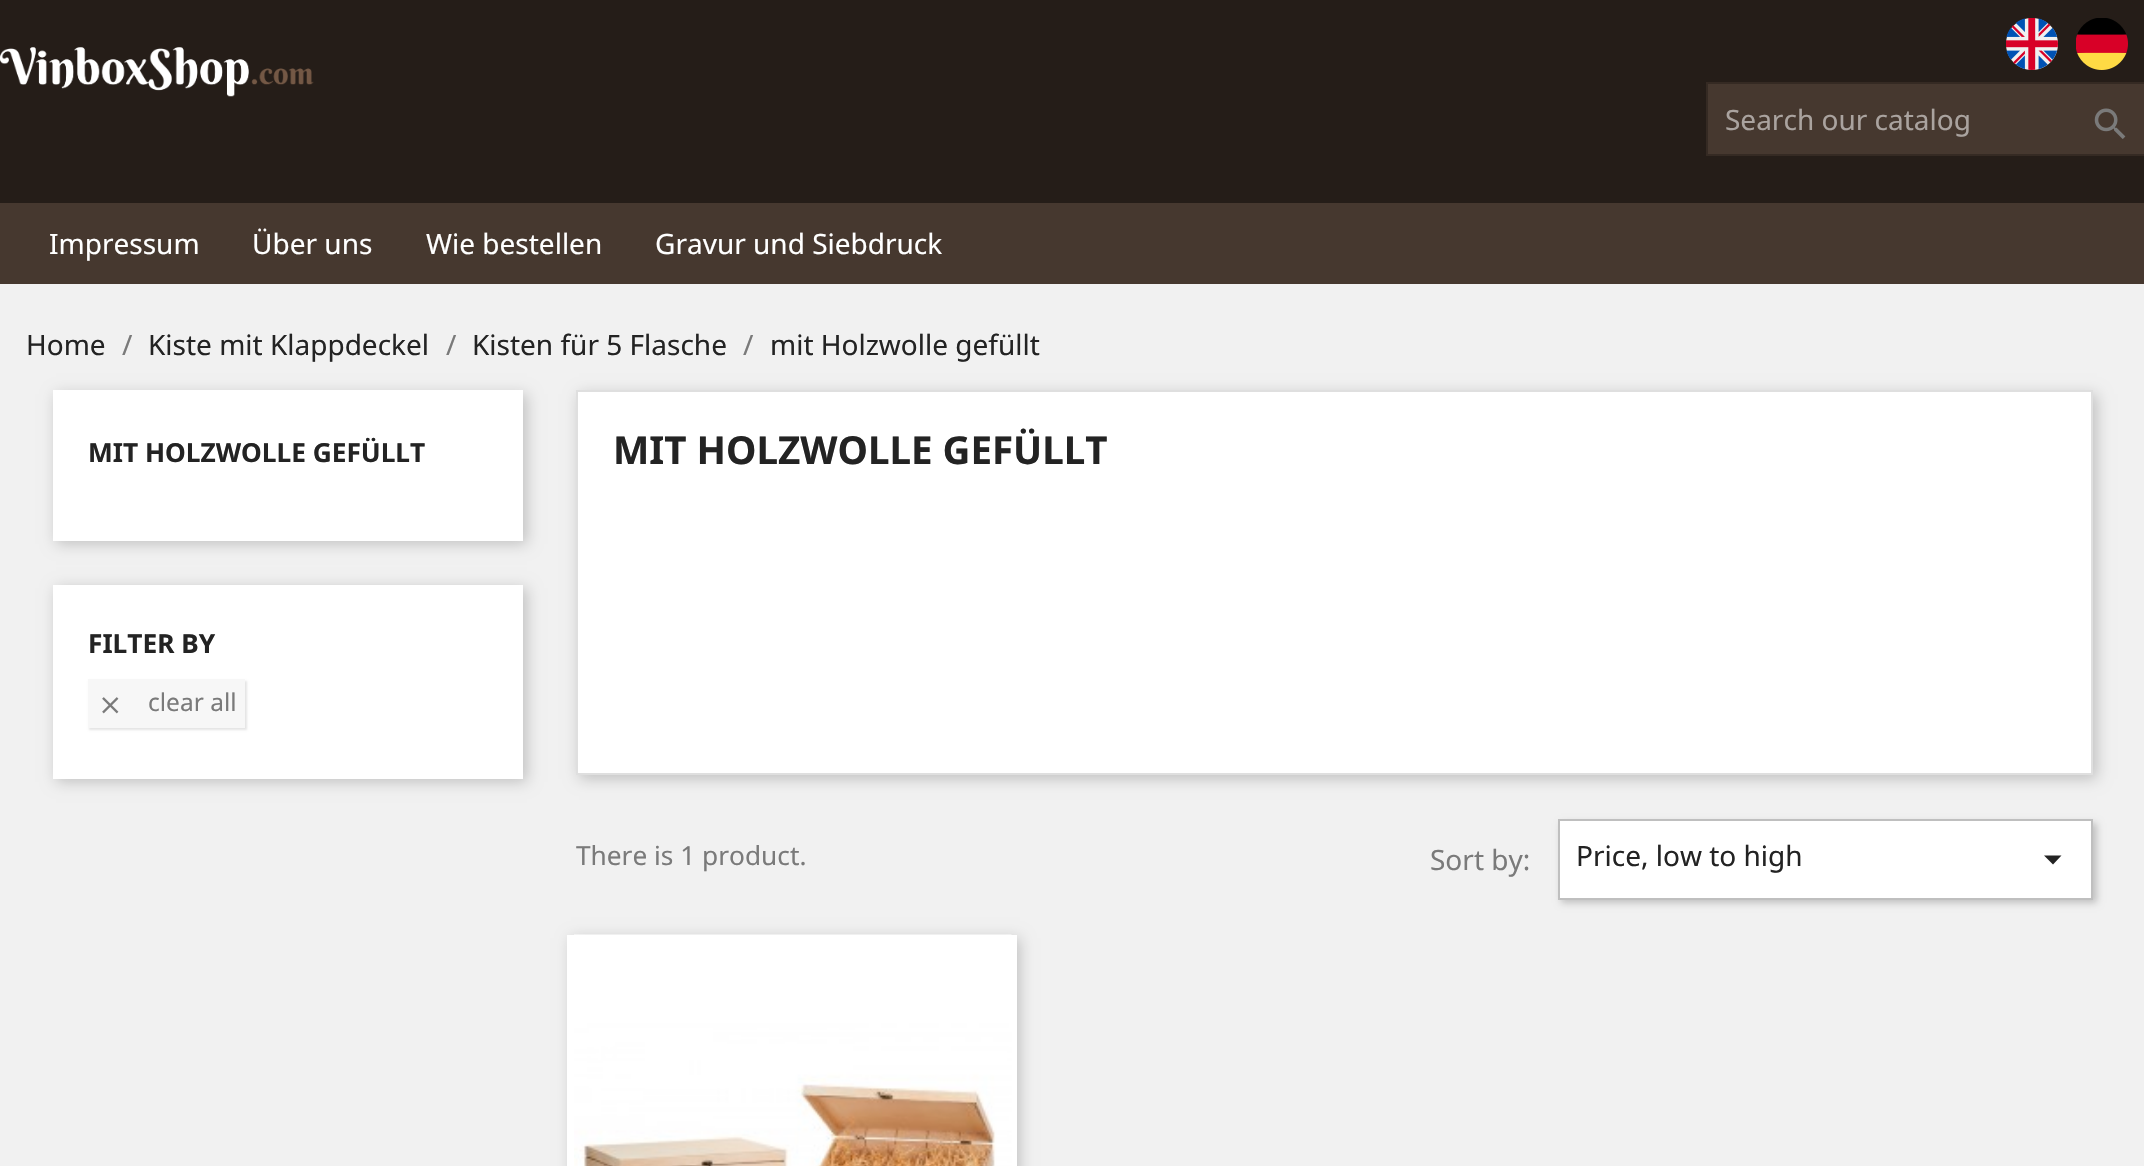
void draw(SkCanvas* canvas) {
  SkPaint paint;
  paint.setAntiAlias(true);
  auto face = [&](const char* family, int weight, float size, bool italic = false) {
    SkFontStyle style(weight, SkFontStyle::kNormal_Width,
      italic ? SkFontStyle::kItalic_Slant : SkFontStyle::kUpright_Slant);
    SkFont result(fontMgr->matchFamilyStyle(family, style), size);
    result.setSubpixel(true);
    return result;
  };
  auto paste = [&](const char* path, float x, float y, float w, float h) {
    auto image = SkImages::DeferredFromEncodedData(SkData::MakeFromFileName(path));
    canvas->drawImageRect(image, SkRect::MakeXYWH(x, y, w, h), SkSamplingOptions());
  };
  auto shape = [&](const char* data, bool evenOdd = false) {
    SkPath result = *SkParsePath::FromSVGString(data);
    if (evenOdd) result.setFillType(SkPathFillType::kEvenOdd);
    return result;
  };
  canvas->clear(0xff251d18);
  paste("img/1.png", 2006, 18, 52, 52);
  paste("img/2.png", 2076, 18, 52, 52);
  paste("img/3.png", 0, 47, 314, 50);
  paint.setColor(0xff46382f);
  canvas->drawRect(SkRect::MakeXYWH(1707, 83, 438, 72), paint);
  paint.setStroke(true);
  paint.setStrokeWidth(2);
  paint.setColor(0xff352a23);
  canvas->drawRect(SkRect::MakeXYWH(1707, 83, 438, 72), paint);
  paste("img/4.png", 2094, 108, 32, 31);
  paint.setStroke(false);
  paint.setColor(0xff46382f);
  canvas->drawRect(SkRect::MakeXYWH(0, 203, 2144, 81), paint);
  paint.setColor(0xfff1f1f1);
  canvas->drawRect(SkRect::MakeXYWH(0, 284, 2144, 882), paint);
  paint.setColor(0x33000000);
  paint.setMaskFilter(SkMaskFilter::MakeBlur(kNormal_SkBlurStyle, 7));
  canvas->drawRect(SkRect::MakeXYWH(56, 394, 471, 150), paint);
  paint.setMaskFilter(nullptr);
  paint.setColor(0xffffffff);
  canvas->drawRect(SkRect::MakeXYWH(53, 390, 470, 151), paint);
  paint.setColor(0x33000000);
  paint.setMaskFilter(SkMaskFilter::MakeBlur(kNormal_SkBlurStyle, 7));
  canvas->drawRect(SkRect::MakeXYWH(56, 588, 471, 194), paint);
  paint.setMaskFilter(nullptr);
  paint.setColor(0xffffffff);
  canvas->drawRect(SkRect::MakeXYWH(53, 585, 470, 194), paint);
  paint.setColor(0x1a000000);
  paint.setMaskFilter(SkMaskFilter::MakeBlur(kNormal_SkBlurStyle, 1));
  canvas->drawRect(SkRect::MakeXYWH(89, 681, 158, 49), paint);
  paint.setMaskFilter(nullptr);
  paint.setColor(0xfff7f7f7);
  canvas->drawRect(SkRect::MakeXYWH(88, 679, 157, 49), paint);
  paste("img/5.png", 102, 697, 17, 17);
  paint.setColor(0x33000000);
  paint.setMaskFilter(SkMaskFilter::MakeBlur(kNormal_SkBlurStyle, 7));
  canvas->drawRect(SkRect::MakeXYWH(579, 394, 1518, 385), paint);
  paint.setMaskFilter(nullptr);
  paint.setColor(0xffffffff);
  canvas->drawRect(SkRect::MakeXYWH(577, 391, 1515, 383), paint);
  paint.setStroke(true);
  paint.setColor(0xffdfdfdf);
  canvas->drawRect(SkRect::MakeXYWH(577, 391, 1515, 383), paint);
  paint.setStroke(false);
  paint.setColor(0x33000000);
  paint.setMaskFilter(SkMaskFilter::MakeBlur(kNormal_SkBlurStyle, 3.5f));
  canvas->drawRect(SkRect::MakeXYWH(1561, 823, 536, 80), paint);
  paint.setMaskFilter(nullptr);
  paint.setColor(0xffffffff);
  canvas->drawRect(SkRect::MakeXYWH(1559, 820, 533, 79), paint);
  paint.setStroke(true);
  paint.setColor(0xffbfbfbf);
  canvas->drawRect(SkRect::MakeXYWH(1559, 820, 533, 79), paint);
  paint.setStroke(false);
  paint.setColor(0xff232323);
  canvas->drawPath(shape("M2044 855.5H2061.5L2053 864.5Z"), paint);
  paint.setColor(0x33000000);
  paint.setMaskFilter(SkMaskFilter::MakeBlur(kNormal_SkBlurStyle, 7));
  canvas->drawRect(SkRect::MakeXYWH(571, 938, 449, 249), paint);
  paint.setMaskFilter(nullptr);
  paint.setColor(0xffffffff);
  canvas->drawRect(SkRect::MakeXYWH(567, 935, 450, 231), paint);
  paste("img/6.png", 574, 934, 438, 232);
  auto f0 = face("Noto Sans", 400, 28);
  paint.setColor(0xffaaa39f);
  canvas->drawString("Search our catalog", 1725, 130, f0, paint);
  paint.setColor(0xffffffff);
  {
    const struct { const char* s; float x, y; } items[] = {
      {"Impressum", 49, 254},
      {"Über uns", 252, 254},
      {"Wie bestellen", 426, 254},
      {"Gravur und Siebdruck", 655, 254},
    };
    for (auto [s, x, y] : items) {
      canvas->drawString(s, x, y, f0, paint);
    }
  }
  paint.setColor(0xff232323);
  canvas->drawString("Home", 26, 355, f0, paint);
  paint.setColor(0xff7a7a7a);
  canvas->drawString("/", 122, 355, f0, paint);
  paint.setColor(0xff232323);
  canvas->drawString("Kiste mit Klappdeckel", 148, 355, f0, paint);
  paint.setColor(0xff7a7a7a);
  canvas->drawString("/", 446, 355, f0, paint);
  paint.setColor(0xff232323);
  canvas->drawString("Kisten für 5 Flasche", 472, 355, f0, paint);
  paint.setColor(0xff7a7a7a);
  canvas->drawString("/", 743, 355, f0, paint);
  paint.setColor(0xff232323);
  canvas->drawString("mit Holzwolle gefüllt", 770, 355, f0, paint);
  auto f1 = face("Noto Sans", 700, 26.25f);
  canvas->drawString("MIT HOLZWOLLE GEFÜLLT", 88, 462, f1, paint);
  canvas->drawString("FILTER BY", 88, 653, f1, paint);
  auto f2 = face("Noto Sans", 400, 24.5f);
  paint.setColor(0xff7a7a7a);
  canvas->drawString("clear all", 148, 711, f2, paint);
  auto f3 = face("Noto Sans", 700, 38.5f);
  paint.setColor(0xff232323);
  canvas->drawString("MIT HOLZWOLLE GEFÜLLT", 613, 464, f3, paint);
  auto f4 = face("Noto Sans", 400, 26.25f);
  paint.setColor(0xff7a7a7a);
  canvas->drawString("There is 1 product.", 576, 865, f4, paint);
  canvas->drawString("Sort by:", 1430, 870, f0, paint);
  paint.setColor(0xff232323);
  canvas->drawString("Price, low to high", 1576, 866, f0, paint);
}
